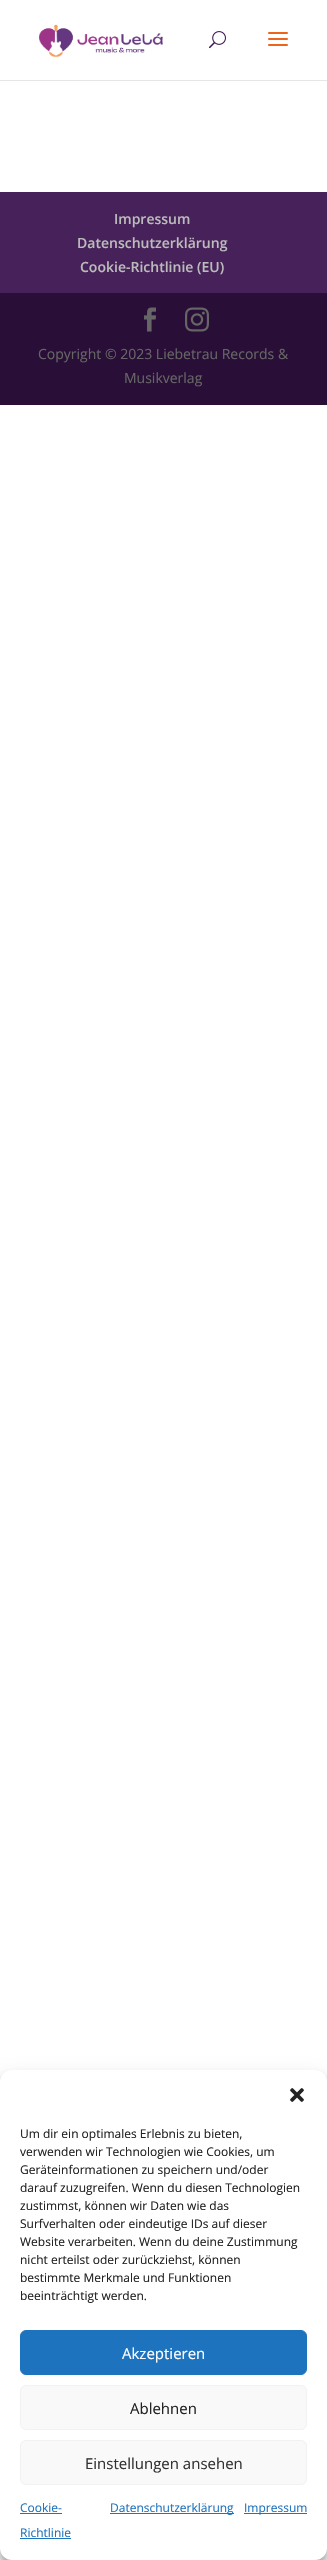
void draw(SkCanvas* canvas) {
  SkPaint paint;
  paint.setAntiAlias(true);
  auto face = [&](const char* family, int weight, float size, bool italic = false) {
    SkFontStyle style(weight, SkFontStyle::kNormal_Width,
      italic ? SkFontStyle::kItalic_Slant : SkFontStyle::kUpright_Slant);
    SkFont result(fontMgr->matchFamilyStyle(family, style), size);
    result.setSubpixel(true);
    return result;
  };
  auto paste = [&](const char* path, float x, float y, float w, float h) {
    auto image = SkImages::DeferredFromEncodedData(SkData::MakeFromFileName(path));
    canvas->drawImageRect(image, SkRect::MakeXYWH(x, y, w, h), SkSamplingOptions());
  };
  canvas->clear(0xffffffff);
  paint.setColor(0xffe6e6e6);
  canvas->drawRect(SkRect::MakeXYWH(0, 80, 327, 1), paint);
  paste("img/1.png", 39, 24, 124, 34);
  paste("img/2.png", 209, 31, 17, 18);
  paste("img/3.png", 268, 32, 20, 14);
  paint.setColor(0xff47225a);
  canvas->drawRect(SkRect::MakeXYWH(0, 192, 327, 101), paint);
  paint.setColor(0xff290f37);
  canvas->drawRect(SkRect::MakeXYWH(0, 293, 327, 112), paint);
  paste("img/4.png", 144, 307, 12, 25);
  paste("img/5.png", 185, 307, 24, 25);
  paint.setColor(0x3b000000);
  paint.setMaskFilter(SkMaskFilter::MakeBlur(kNormal_SkBlurStyle, 3));
  canvas->drawRoundRect(SkRect::MakeXYWH(0, 2076, 327, 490), 12, 12, paint);
  paint.setMaskFilter(nullptr);
  paint.setColor(0x30000000);
  paint.setMaskFilter(SkMaskFilter::MakeBlur(kNormal_SkBlurStyle, 10));
  canvas->drawRoundRect(SkRect::MakeXYWH(0, 2080, 327, 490), 12, 12, paint);
  paint.setMaskFilter(nullptr);
  paint.setColor(0xffffffff);
  canvas->drawRoundRect(SkRect::MakeXYWH(0, 2070, 327, 490), 12, 12, paint);
  paste("img/6.png", 290, 2088, 14, 14);
  paint.setColor(0xff1e73be);
  canvas->drawRoundRect(SkRect::MakeXYWH(20.5f, 2330.5f, 286, 44), 5.5f, 5.5f, paint);
  paint.setStroke(true);
  paint.setStrokeWidth(1);
  canvas->drawRoundRect(SkRect::MakeXYWH(20.5f, 2330.5f, 286, 44), 5.5f, 5.5f, paint);
  paint.setStroke(false);
  paint.setColor(0xfff9f9f9);
  canvas->drawRoundRect(SkRect::MakeXYWH(20.5f, 2385.5f, 286, 44), 5.5f, 5.5f, paint);
  paint.setStroke(true);
  paint.setColor(0xfff2f2f2);
  canvas->drawRoundRect(SkRect::MakeXYWH(20.5f, 2385.5f, 286, 44), 5.5f, 5.5f, paint);
  paint.setStroke(false);
  paint.setColor(0xfff9f9f9);
  canvas->drawRoundRect(SkRect::MakeXYWH(20.5f, 2440.5f, 286, 44), 5.5f, 5.5f, paint);
  paint.setStroke(true);
  paint.setColor(0xfff2f2f2);
  canvas->drawRoundRect(SkRect::MakeXYWH(20.5f, 2440.5f, 286, 44), 5.5f, 5.5f, paint);
  paint.setStroke(false);
  {
    const struct { float x, y, w, h; SkColor color; } items[] = {
      {20, 2513, 42, 1, 0xff1e73be},
      {20, 2538, 51, 1, 0xff1e73be},
      {110, 2513, 124, 1, 0xff1e73be},
      {244, 2513, 63, 1, 0xff1e73be},
    };
    for (auto [x, y, w, h, color] : items) {
      paint.setColor(color);
      canvas->drawRect(SkRect::MakeXYWH(x, y, w, h), paint);
    }
  }
  auto f0 = face("Open Sans", 600, 14);
  paint.setColor(0xffbbbbbb);
  {
    const struct { const char* s; float x, y; } items[] = {
      {"Impressum", 114, 224},
      {"Datenschutzerklärung", 77, 248},
      {"Cookie-Richtlinie (EU)", 80, 272},
    };
    for (auto [s, x, y] : items) {
      canvas->drawString(s, x, y, f0, paint);
    }
  }
  auto f1 = face("Open Sans", 400, 14);
  paint.setColor(0xff666666);
  canvas->drawString("Copyright © 2023 Liebetrau Records &", 38, 359, f1, paint);
  canvas->drawString("Musikverlag", 124, 383, f1, paint);
  auto f2 = face("Open Sans", 400, 12);
  paint.setColor(0xff222222);
  {
    const struct { const char* s; float x, y; } items[] = {
      {"Um dir ein optimales Erlebnis zu bieten,", 20, 2138},
      {"verwenden wir Technologien wie Cookies, um", 20, 2156},
      {"Geräteinformationen zu speichern und/oder", 20, 2174},
      {"darauf zuzugreifen. Wenn du diesen Technologien", 20, 2192},
      {"zustimmst, können wir Daten wie das", 20, 2210},
      {"Surfverhalten oder eindeutige IDs auf dieser", 20, 2228},
      {"Website verarbeiten. Wenn du deine Zustimmung", 20, 2246},
      {"nicht erteilst oder zurückziehst, können", 20, 2264},
      {"bestimmte Merkmale und Funktionen", 20, 2282},
      {"beeinträchtigt werden.", 20, 2300},
    };
    for (auto [s, x, y] : items) {
      canvas->drawString(s, x, y, f2, paint);
    }
  }
  auto f3 = face("Open Sans", 400, 15);
  paint.setColor(0xffffffff);
  canvas->drawString("Akzeptieren", 122, 2359, f3, paint);
  paint.setColor(0xff222222);
  canvas->drawString("Ablehnen", 130, 2414, f3, paint);
  paint.setColor(0xff333333);
  canvas->drawString("Einstellungen ansehen", 85, 2469, f3, paint);
  paint.setColor(0xff1e73be);
  {
    const struct { const char* s; float x, y; } items[] = {
      {"Cookie-", 20, 2512},
      {"Richtlinie", 20, 2537},
      {"Datenschutzerklärung", 110, 2512},
      {"Impressum", 244, 2512},
    };
    for (auto [s, x, y] : items) {
      canvas->drawString(s, x, y, f2, paint);
    }
  }
}
